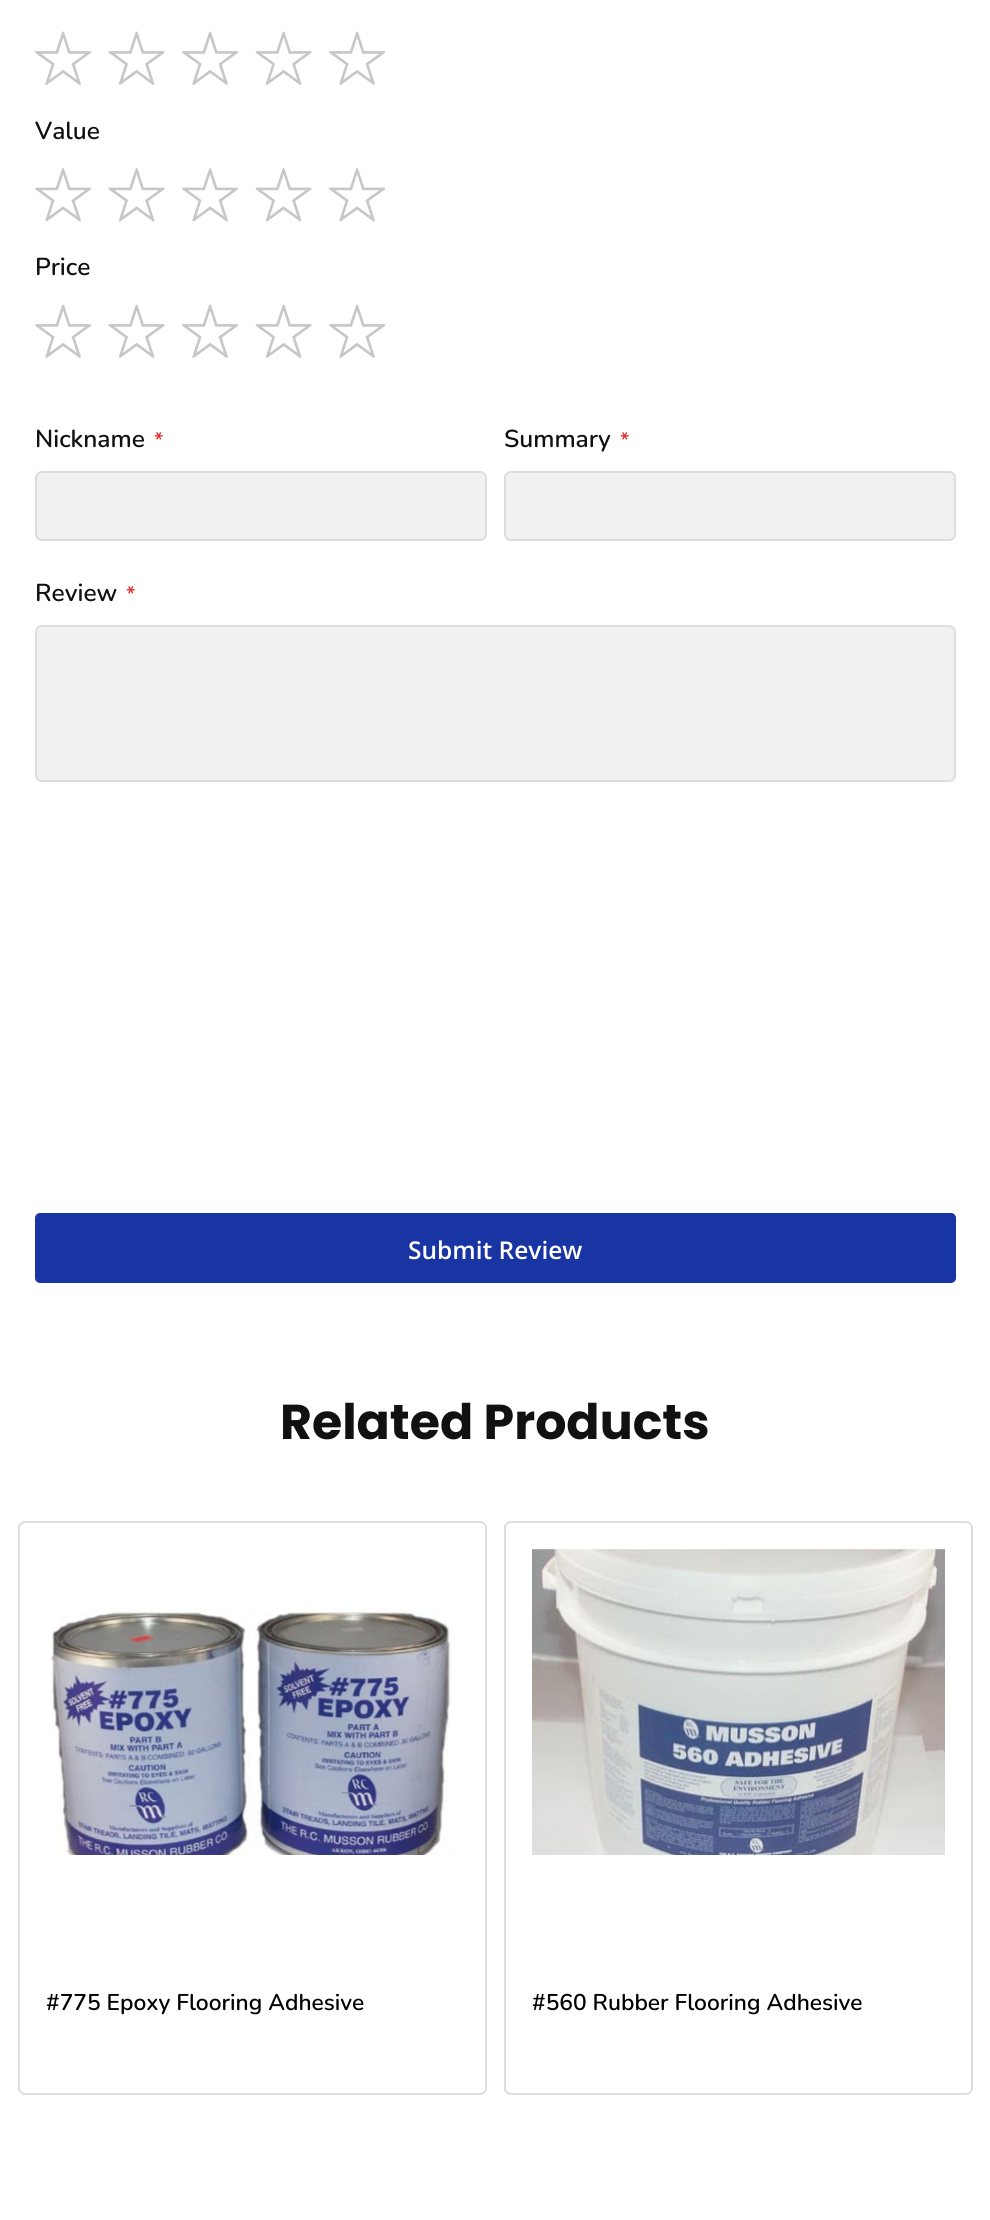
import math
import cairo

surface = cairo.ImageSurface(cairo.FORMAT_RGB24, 990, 2220)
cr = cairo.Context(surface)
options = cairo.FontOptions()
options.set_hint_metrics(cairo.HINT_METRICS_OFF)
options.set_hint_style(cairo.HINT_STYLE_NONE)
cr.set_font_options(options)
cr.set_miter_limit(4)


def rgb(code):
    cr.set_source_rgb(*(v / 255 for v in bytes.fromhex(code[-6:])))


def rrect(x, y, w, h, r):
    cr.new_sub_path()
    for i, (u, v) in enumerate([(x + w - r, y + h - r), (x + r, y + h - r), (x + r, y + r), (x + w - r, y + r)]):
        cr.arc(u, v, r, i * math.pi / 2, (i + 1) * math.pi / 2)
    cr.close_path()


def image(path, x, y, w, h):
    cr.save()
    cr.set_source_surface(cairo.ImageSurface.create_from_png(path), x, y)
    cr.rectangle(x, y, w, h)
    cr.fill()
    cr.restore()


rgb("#ffffff")
cr.paint()
image("img/1.png", 35, 31, 350, 54)
image("img/2.png", 35, 168, 351, 54)
image("img/1.png", 35, 304, 350, 54)
rgb("#f1f1f1")
rrect(36, 472, 450, 68, 6)
cr.fill_preserve()
rgb("#dddddd")
cr.stroke()
rgb("#f1f1f1")
rrect(505, 472, 450, 68, 6)
cr.fill_preserve()
rgb("#dddddd")
cr.stroke()
rgb("#f1f1f1")
rrect(36, 626, 919, 155, 6)
cr.fill_preserve()
rgb("#dddddd")
cr.stroke()
rgb("#1935a3")
rrect(36, 1214, 919, 68, 4)
cr.fill_preserve()
cr.stroke()
rrect(19, 1522, 467, 572, 6)
rgb("#dddddd")
cr.stroke()
image("img/3.png", 46, 1607, 409, 248)
rrect(505, 1522, 467, 572, 6)
cr.stroke()
image("img/4.png", 532, 1549, 413, 306)
cr.select_font_face("Nunito SemiBold")
cr.set_font_size(24.5)
rgb("#111111")
for x, y, s in [
    (35, 139, "Value"),
    (35, 275, "Price"),
    (35, 447, "Nickname"),
]:
    cr.move_to(x, y)
    cr.show_text(s)
cr.set_font_size(21)
rgb("#e02b27")
cr.move_to(154, 447)
cr.show_text("*")
cr.set_font_size(24.5)
rgb("#111111")
cr.move_to(504, 447)
cr.show_text("Summary")
cr.set_font_size(21)
rgb("#e02b27")
cr.move_to(620, 447)
cr.show_text("*")
cr.set_font_size(24.5)
rgb("#111111")
cr.move_to(35, 601)
cr.show_text("Review")
cr.set_font_size(21)
rgb("#e02b27")
cr.move_to(126, 601)
cr.show_text("*")
cr.select_font_face("Open Sans SemiBold")
cr.set_font_size(24.5)
rgb("#ffffff")
cr.move_to(408, 1259)
cr.show_text("Submit Review")
cr.select_font_face("Poppins", cairo.FONT_SLANT_NORMAL, cairo.FONT_WEIGHT_BOLD)
cr.set_font_size(49)
rgb("#111111")
cr.move_to(280, 1439)
cr.show_text("Related Products")
cr.select_font_face("Nunito SemiBold")
cr.set_font_size(22.75)
rgb("#000000")
cr.move_to(46, 2010)
cr.show_text("#775 Epoxy Flooring Adhesive")
cr.move_to(532, 2010)
cr.show_text("#560 Rubber Flooring Adhesive")
surface.write_to_png("page.png")
